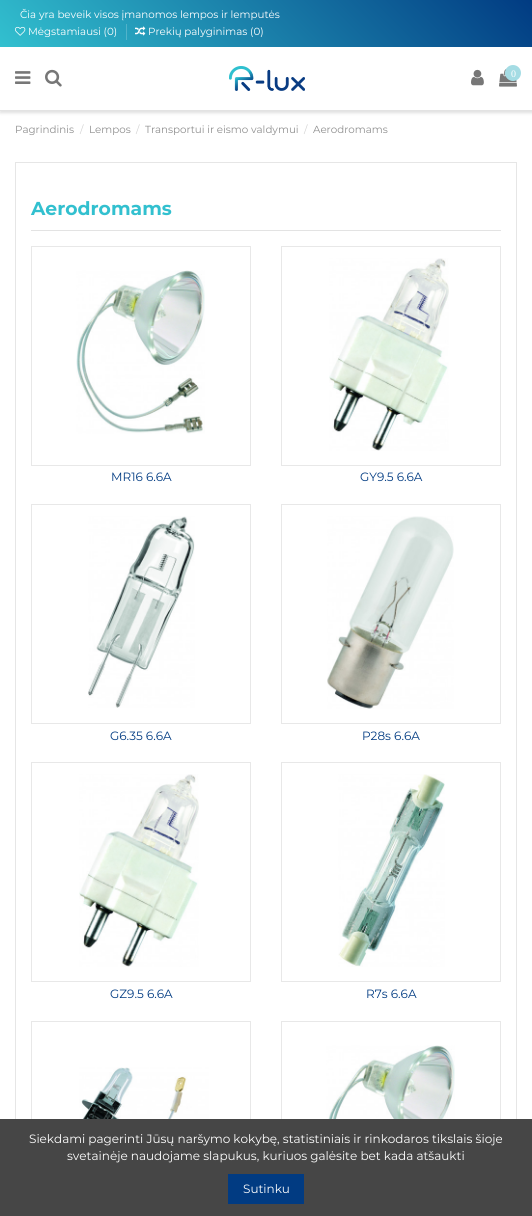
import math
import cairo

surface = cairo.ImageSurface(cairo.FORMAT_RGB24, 532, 1216)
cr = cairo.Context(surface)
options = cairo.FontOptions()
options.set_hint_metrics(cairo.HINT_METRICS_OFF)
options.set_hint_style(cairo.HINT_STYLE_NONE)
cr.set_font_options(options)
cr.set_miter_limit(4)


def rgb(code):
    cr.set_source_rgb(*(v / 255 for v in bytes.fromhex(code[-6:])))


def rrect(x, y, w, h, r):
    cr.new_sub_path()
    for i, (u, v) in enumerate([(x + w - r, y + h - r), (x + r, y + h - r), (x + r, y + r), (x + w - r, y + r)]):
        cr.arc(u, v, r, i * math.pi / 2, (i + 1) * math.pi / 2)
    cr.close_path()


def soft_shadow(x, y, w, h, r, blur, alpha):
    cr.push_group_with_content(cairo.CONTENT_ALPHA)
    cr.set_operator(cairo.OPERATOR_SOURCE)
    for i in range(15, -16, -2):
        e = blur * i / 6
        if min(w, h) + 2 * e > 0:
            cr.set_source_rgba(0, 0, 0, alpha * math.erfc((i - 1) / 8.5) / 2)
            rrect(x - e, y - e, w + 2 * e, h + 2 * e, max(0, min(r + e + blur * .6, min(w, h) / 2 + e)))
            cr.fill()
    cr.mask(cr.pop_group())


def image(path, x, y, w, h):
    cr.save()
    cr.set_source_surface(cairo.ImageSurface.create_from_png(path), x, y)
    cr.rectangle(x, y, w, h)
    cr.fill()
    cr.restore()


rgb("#ffffff")
cr.paint()
cr.save()
cr.rectangle(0, 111, 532, 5)
cr.clip()
rgb("#e0e0e0")
soft_shadow(0, -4, 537, 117, 0, 1.5, 1)
cr.restore()
gradient = cairo.LinearGradient(121, 168, 411, -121)
gradient.add_color_stop_rgba(0, 0.196, 0.753, 0.812, 1)
gradient.add_color_stop_rgba(1, 0.004, 0.231, 0.51, 1)
cr.set_source(gradient)
cr.rectangle(0, 0, 532, 47)
cr.fill()
gradient = cairo.LinearGradient(121, 168, 411, -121)
gradient.add_color_stop_rgba(0, 0.357, 0.804, 0.851, 1)
gradient.add_color_stop_rgba(1, 0.204, 0.384, 0.608, 1)
cr.set_source(gradient)
cr.rectangle(126, 24, 1, 16)
cr.fill()
image("img/1.png", 15, 26, 11, 10)
image("img/2.png", 135, 26, 11, 10)
rgb("#e3e3e3")
cr.rectangle(0, 110, 532, 1)
cr.fill()
image("img/3.png", 15, 71, 16, 13)
image("img/4.png", 45, 69, 17, 18)
image("img/5.png", 229, 66, 76, 25)
image("img/6.png", 471, 69, 13, 17)
image("img/7.png", 499, 68, 18, 19)
rgb("#a4dce4")
cr.arc(513, 73, 8, 0, 2 * math.pi)
cr.fill()
cr.rectangle(15.5, 162.5, 501, 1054)
rgb("#e6e6e6")
cr.set_line_width(1)
cr.stroke()
rgb("#e3e3e3")
cr.rectangle(31, 230, 470, 1)
cr.fill()
cr.rectangle(31.5, 246.5, 219, 219)
rgb("#e8e8e8")
cr.stroke()
image("img/8.png", 76, 270, 129, 164)
cr.rectangle(281.5, 246.5, 219, 219)
cr.stroke()
image("img/9.png", 329, 258, 120, 193)
cr.rectangle(31.5, 504.5, 219, 219)
cr.stroke()
image("img/10.png", 88, 516, 107, 192)
cr.rectangle(281.5, 504.5, 219, 219)
cr.stroke()
image("img/11.png", 327, 516, 127, 193)
cr.rectangle(31.5, 762.5, 219, 219)
cr.stroke()
image("img/9.png", 79, 774, 120, 193)
cr.rectangle(281.5, 762.5, 219, 219)
cr.stroke()
image("img/12.png", 338, 774, 107, 193)
cr.rectangle(31.5, 1021.5, 219, 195)
cr.stroke()
image("img/13.png", 79, 1067, 130, 52)
cr.rectangle(281.5, 1021.5, 219, 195)
cr.stroke()
image("img/14.png", 326, 1045, 129, 74)
rgb("#464646")
cr.rectangle(0, 1119, 532, 97)
cr.fill()
rgb("#013b82")
cr.rectangle(228, 1174, 76, 30)
cr.fill()
cr.select_font_face("Montserrat")
cr.set_font_size(10.3)
rgb("#ffffff")
for x, y, s in [
    (20, 18, "Čia yra beveik visos įmanomos lempos ir lemputės"),
    (28, 35, "Mėgstamiausi (0)"),
    (148, 35, "Prekių palyginimas (0)"),
]:
    cr.move_to(x, y)
    cr.show_text(s)
cr.select_font_face("Liberation Serif")
cr.set_font_size(10)
cr.move_to(511, 77)
cr.show_text("0")
cr.select_font_face("Montserrat")
cr.set_font_size(10.3)
rgb("#8f8f8f")
cr.move_to(15, 133)
cr.show_text("Pagrindinis")
rgb("#d2d2d2")
cr.move_to(80, 133)
cr.show_text("/")
rgb("#8f8f8f")
cr.move_to(89, 133)
cr.show_text("Lempos")
rgb("#d2d2d2")
cr.move_to(136, 133)
cr.show_text("/")
rgb("#8f8f8f")
cr.move_to(145, 133)
cr.show_text("Transportui ir eismo valdymui")
rgb("#d2d2d2")
cr.move_to(304, 133)
cr.show_text("/")
rgb("#8f8f8f")
cr.move_to(313, 133)
cr.show_text("Aerodromams")
cr.select_font_face("Montserrat", cairo.FONT_SLANT_NORMAL, cairo.FONT_WEIGHT_BOLD)
cr.set_font_size(18.75)
rgb("#32c0cf")
cr.move_to(31, 215)
cr.show_text("Aerodromams")
cr.select_font_face("Montserrat")
cr.set_font_size(12)
rgb("#013b82")
for x, y, s in [
    (111, 481, "MR16 6.6A"),
    (360, 481, "GY9.5 6.6A"),
    (110, 740, "G6.35 6.6A"),
    (362, 740, "P28s 6.6A"),
    (110, 998, "GZ9.5 6.6A"),
    (366, 998, "R7s 6.6A"),
]:
    cr.move_to(x, y)
    cr.show_text(s)
rgb("#ffffff")
for x, y, s in [
    (29, 1143, "Siekdami pagerinti Jūsų naršymo kokybę, statistiniais ir rinkodaros tikslais šioje"),
    (67, 1160, "svetainėje naudojame slapukus, kuriuos galėsite bet kada atšaukti"),
    (243, 1193, "Sutinku"),
]:
    cr.move_to(x, y)
    cr.show_text(s)
surface.write_to_png("page.png")
